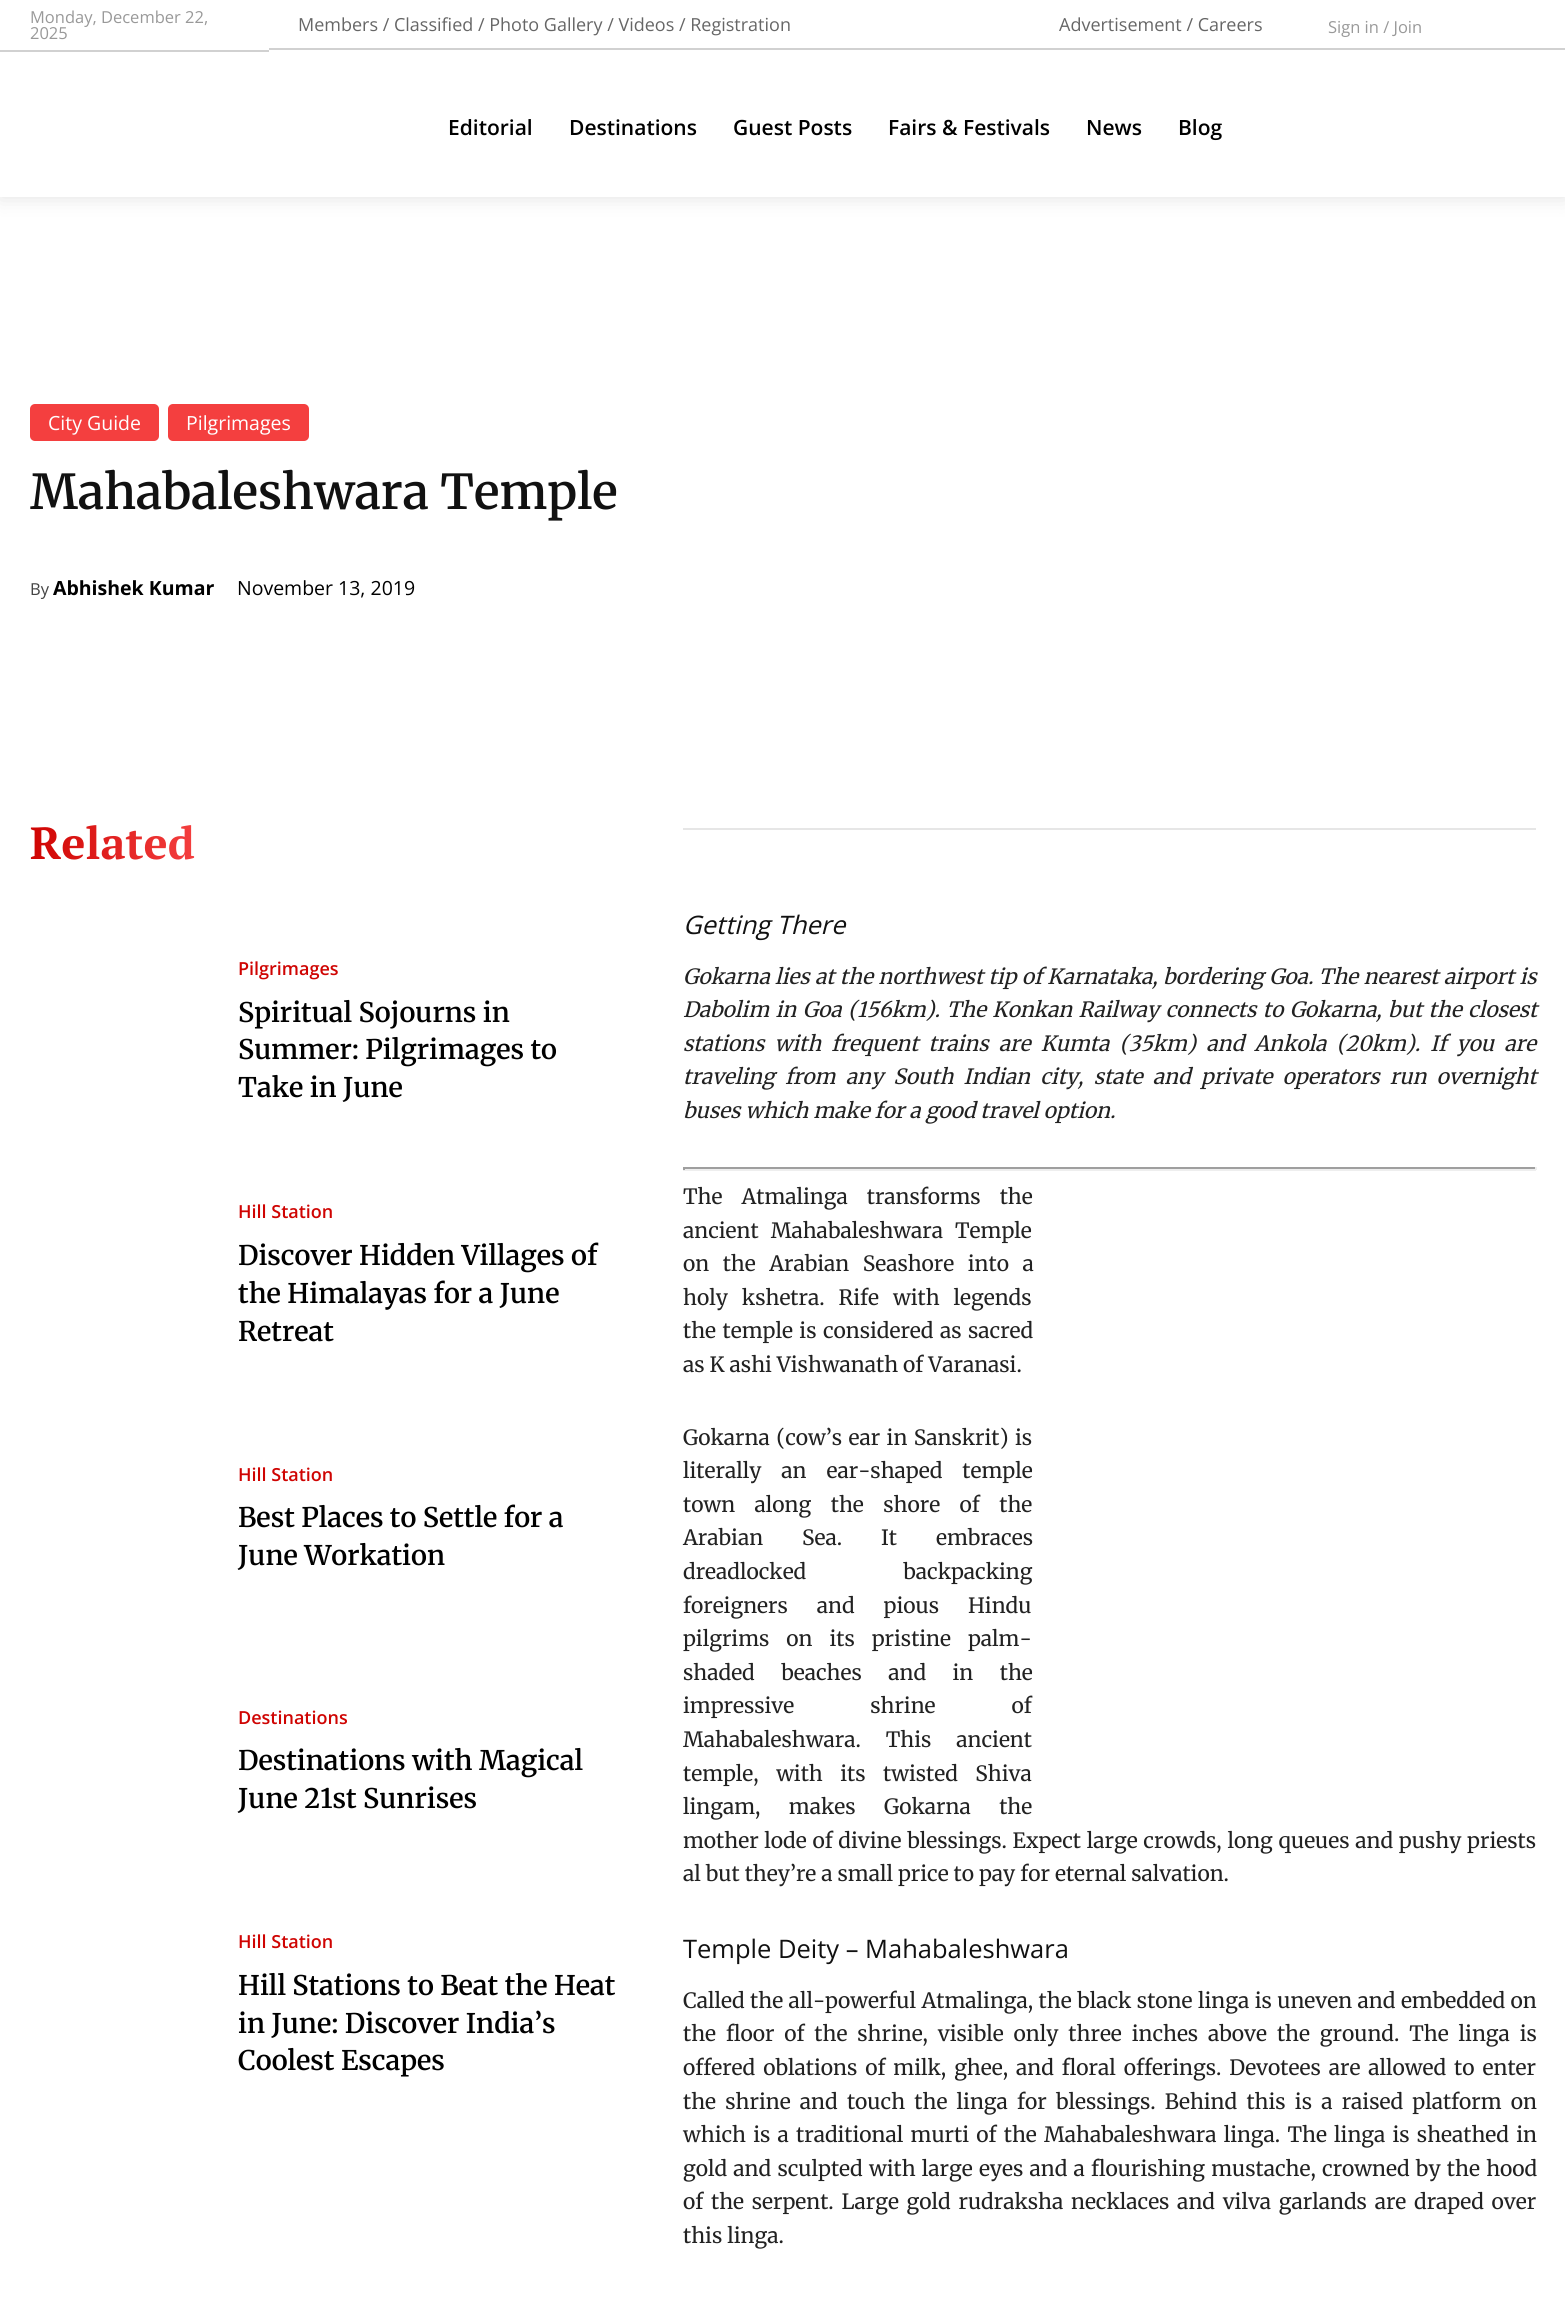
import math
import cairo

surface = cairo.ImageSurface(cairo.FORMAT_RGB24, 1565, 2299)
cr = cairo.Context(surface)
options = cairo.FontOptions()
options.set_hint_metrics(cairo.HINT_METRICS_OFF)
options.set_hint_style(cairo.HINT_STYLE_NONE)
cr.set_font_options(options)
cr.set_miter_limit(4)


def rgb(code):
    cr.set_source_rgb(*(v / 255 for v in bytes.fromhex(code[-6:])))


def tracked(x, y, s, letter, word):
    cr.move_to(x, y)
    for ch in s:
        cr.show_text(ch)
        cr.rel_move_to(letter + word * (ch == ' '), 0)


def rrect(x, y, w, h, r):
    cr.new_sub_path()
    for i, (u, v) in enumerate([(x + w - r, y + h - r), (x + r, y + h - r), (x + r, y + r), (x + w - r, y + r)]):
        cr.arc(u, v, r, i * math.pi / 2, (i + 1) * math.pi / 2)
    cr.close_path()


def soft_shadow(x, y, w, h, r, blur, alpha):
    cr.push_group_with_content(cairo.CONTENT_ALPHA)
    cr.set_operator(cairo.OPERATOR_SOURCE)
    for i in range(15, -16, -2):
        e = blur * i / 6
        if min(w, h) + 2 * e > 0:
            cr.set_source_rgba(0, 0, 0, alpha * math.erfc((i - 1) / 8.5) / 2)
            rrect(x - e, y - e, w + 2 * e, h + 2 * e, max(0, min(r + e + blur * .6, min(w, h) / 2 + e)))
            cr.fill()
    cr.mask(cr.pop_group())


rgb("#ffffff")
cr.paint()
rgb("#d1d1d1")
cr.rectangle(0, 50, 269, 2)
cr.fill()
cr.rectangle(269, 48, 1296, 2)
cr.fill()
cr.save()
cr.set_fill_rule(cairo.FILL_RULE_EVEN_ODD)
cr.new_path()
cr.move_to(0, 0)
cr.line_to(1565, 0)
cr.line_to(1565, 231)
cr.line_to(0, 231)
cr.close_path()
cr.move_to(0, 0)
cr.line_to(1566, 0)
cr.line_to(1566, 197)
cr.line_to(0, 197)
cr.close_path()
cr.clip()
rgb("#000000")
soft_shadow(0, 0, 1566, 197, 0, 11, 0.12)
cr.restore()
rgb("#f43f3f")
rrect(30, 404, 129, 37, 5)
cr.fill()
rrect(168, 404, 141, 37, 5)
cr.fill()
for x, y, w, h, color in [
    (683, 828, 853, 2, "#e6e6e6"),
    (683, 1167, 853, 2, "#9f9f9f"),
    (1535, 1167, 2, 3, "#eeeeee"),
    (683, 1169, 853, 2, "#eeeeee"),
    (683, 1167, 2, 3, "#9f9f9f"),
]:
    rgb(color)
    cr.rectangle(x, y, w, h)
    cr.fill()
cr.select_font_face("Open Sans")
cr.set_font_size(16.5)
rgb("#999999")
cr.move_to(30, 23)
cr.show_text("Monday, December 22,")
cr.move_to(30, 39)
cr.show_text("2025")
cr.set_font_size(18)
rgb("#666666")
cr.move_to(298, 31)
cr.show_text("Members / Classified / Photo Gallery / Videos / Registration")
cr.move_to(1059, 31)
cr.show_text("Advertisement / Careers")
cr.set_font_size(16.5)
rgb("#999999")
cr.move_to(1328, 33)
cr.show_text("Sign in / Join")
cr.select_font_face("Open Sans SemiBold")
cr.set_font_size(21)
rgb("#000000")
for x, y, s in [
    (448, 135, "Editorial"),
    (569, 135, "Destinations"),
    (733, 135, "Guest Posts"),
    (888, 135, "Fairs & Festivals"),
    (1086, 135, "News"),
    (1178, 135, "Blog"),
]:
    cr.move_to(x, y)
    cr.show_text(s)
cr.select_font_face("Open Sans")
cr.set_font_size(19.5)
rgb("#ffffff")
cr.move_to(48, 430)
cr.show_text("City Guide")
cr.move_to(186, 430)
cr.show_text("Pilgrimages")
cr.select_font_face("Merriweather SemiBold")
cr.set_font_size(48)
rgb("#111111")
cr.move_to(30, 509)
cr.show_text("Mahabaleshwara Temple")
cr.select_font_face("Open Sans")
cr.set_font_size(16.5)
rgb("#444444")
cr.move_to(30, 595)
cr.show_text("By")
cr.select_font_face("Open Sans", cairo.FONT_SLANT_NORMAL, cairo.FONT_WEIGHT_BOLD)
cr.set_font_size(19.5)
rgb("#000000")
cr.move_to(53, 595)
cr.show_text("Abhishek Kumar")
cr.select_font_face("Open Sans")
cr.move_to(237, 595)
cr.show_text("November 13, 2019")
cr.select_font_face("PT Serif", cairo.FONT_SLANT_NORMAL, cairo.FONT_WEIGHT_BOLD)
cr.set_font_size(45)
gradient = cairo.LinearGradient(195, 843, 30, 843)
gradient.add_color_stop_rgba(0, 0.957, 0.247, 0.247, 1)
gradient.add_color_stop_rgba(1, 0.812, 0.016, 0.008, 1)
cr.set_source(gradient)
cr.move_to(30, 859)
cr.show_text("Related")
cr.select_font_face("Open Sans SemiBold")
cr.set_font_size(18)
rgb("#cf0402")
cr.move_to(238, 975)
cr.show_text("Pilgrimages")
cr.select_font_face("Merriweather SemiBold")
cr.set_font_size(27)
rgb("#000000")
for x, y, s in [
    (238, 1022, "Spiritual Sojourns in"),
    (238, 1059, "Summer: Pilgrimages to"),
    (238, 1097, "Take in June"),
]:
    cr.move_to(x, y)
    cr.show_text(s)
cr.select_font_face("Open Sans SemiBold")
cr.set_font_size(18)
rgb("#cf0402")
cr.move_to(238, 1218)
cr.show_text("Hill Station")
cr.select_font_face("Merriweather SemiBold")
cr.set_font_size(27)
rgb("#000000")
for x, y, s in [
    (238, 1265, "Discover Hidden Villages of"),
    (238, 1303, "the Himalayas for a June"),
    (238, 1341, "Retreat"),
]:
    cr.move_to(x, y)
    cr.show_text(s)
cr.select_font_face("Open Sans SemiBold")
cr.set_font_size(18)
rgb("#cf0402")
cr.move_to(238, 1481)
cr.show_text("Hill Station")
cr.select_font_face("Merriweather SemiBold")
cr.set_font_size(27)
rgb("#000000")
cr.move_to(238, 1527)
cr.show_text("Best Places to Settle for a")
cr.move_to(238, 1565)
cr.show_text("June Workation")
cr.select_font_face("Open Sans SemiBold")
cr.set_font_size(18)
rgb("#cf0402")
cr.move_to(238, 1724)
cr.show_text("Destinations")
cr.select_font_face("Merriweather SemiBold")
cr.set_font_size(27)
rgb("#000000")
cr.move_to(238, 1770)
cr.show_text("Destinations with Magical")
cr.move_to(238, 1808)
cr.show_text("June 21st Sunrises")
cr.select_font_face("Open Sans SemiBold")
cr.set_font_size(18)
rgb("#cf0402")
cr.move_to(238, 1948)
cr.show_text("Hill Station")
cr.select_font_face("Merriweather SemiBold")
cr.set_font_size(27)
rgb("#000000")
for x, y, s in [
    (238, 1995, "Hill Stations to Beat the Heat"),
    (238, 2033, "in June: Discover India’s"),
    (238, 2070, "Coolest Escapes"),
]:
    cr.move_to(x, y)
    cr.show_text(s)
cr.select_font_face("Open Sans", cairo.FONT_SLANT_ITALIC)
cr.set_font_size(25.5)
rgb("#111111")
cr.move_to(683, 934)
cr.show_text("Getting There")
cr.select_font_face("Merriweather", cairo.FONT_SLANT_ITALIC)
cr.set_font_size(21)
rgb("#222222")
tracked(683, 984, "Gokarna lies at the northwest tip of Karnataka, bordering Goa. The nearest airport is", 0, 0.4)
tracked(683, 1017, "Dabolim in Goa (156km). The Konkan Railway connects to Gokarna, but the closest", 0, 1.5)
tracked(683, 1051, "stations with frequent trains are Kumta (35km) and Ankola (20km). If you are", 0, 5.25)
tracked(683, 1084, "traveling from any South Indian city, state and private operators run overnight", 0, 5.25)
cr.move_to(683, 1118)
cr.show_text("buses which make for a good travel option.")
cr.select_font_face("Merriweather")
tracked(683, 1204, "The Atmalinga transforms the", 0, 14)
tracked(683, 1238, "ancient Mahabaleshwara Temple", 0, 7)
tracked(683, 1271, "on the Arabian Seashore into a", 0, 8.5)
tracked(683, 1305, "holy kshetra. Rife with legends", 0, 9)
tracked(683, 1338, "the temple is considered as sacred", 0, 1.5)
cr.move_to(683, 1372)
cr.show_text("as K ashi Vishwanath of Varanasi.")
tracked(683, 1445, "Gokarna (cow’s ear in Sanskrit) is", 0, 1.5)
tracked(683, 1478, "literally an ear-shaped temple", 0, 15)
tracked(683, 1512, "town along the shore of the", 0, 14.5)
tracked(683, 1545, "Arabian Sea. It embraces", 0, 34)
tracked(683, 1579, "dreadlocked backpacking", 0, 92)
tracked(683, 1613, "foreigners and pious Hindu", 0, 24)
tracked(683, 1646, "pilgrims on its pristine palm-", 0, 12)
tracked(683, 1680, "shaded beaches and in the", 0, 21.5)
tracked(683, 1713, "impressive shrine of", 0, 71)
tracked(683, 1747, "Mahabaleshwara. This ancient", 0, 20)
tracked(683, 1781, "temple, with its twisted Shiva", 0, 12.5)
tracked(683, 1814, "lingam, makes Gokarna the", 0, 23.5)
tracked(683, 1848, "mother lode of divine blessings. Expect large crowds, long queues and pushy priests", 0, 0.75)
cr.move_to(683, 1881)
cr.show_text("al but they’re a small price to pay for eternal salvation.")
cr.select_font_face("Open Sans")
cr.set_font_size(25.5)
rgb("#111111")
cr.move_to(683, 1958)
cr.show_text("Temple Deity – Mahabaleshwara")
cr.select_font_face("Merriweather")
cr.set_font_size(21)
rgb("#222222")
tracked(683, 2008, "Called the all-powerful Atmalinga, the black stone linga is uneven and embedded on", 0, 0.5)
tracked(683, 2041, "the floor of the shrine, visible only three inches above the ground. The linga is", 0, 4.9)
tracked(683, 2075, "offered oblations of milk, ghee, and floral offerings. Devotees are allowed to enter", 0, 3)
tracked(683, 2109, "the shrine and touch the linga for blessings. Behind this is a raised platform on", 0, 4.25)
tracked(683, 2142, "which is a traditional murti of the Mahabaleshwara linga. The linga is sheathed in", 0, 2.25)
tracked(683, 2176, "gold and sculpted with large eyes and a flourishing mustache, crowned by the hood", 0, 1.25)
tracked(683, 2209, "of the serpent. Large gold rudraksha necklaces and vilva garlands are draped over", 0, 2.75)
cr.move_to(683, 2243)
cr.show_text("this linga.")
surface.write_to_png("page.png")
